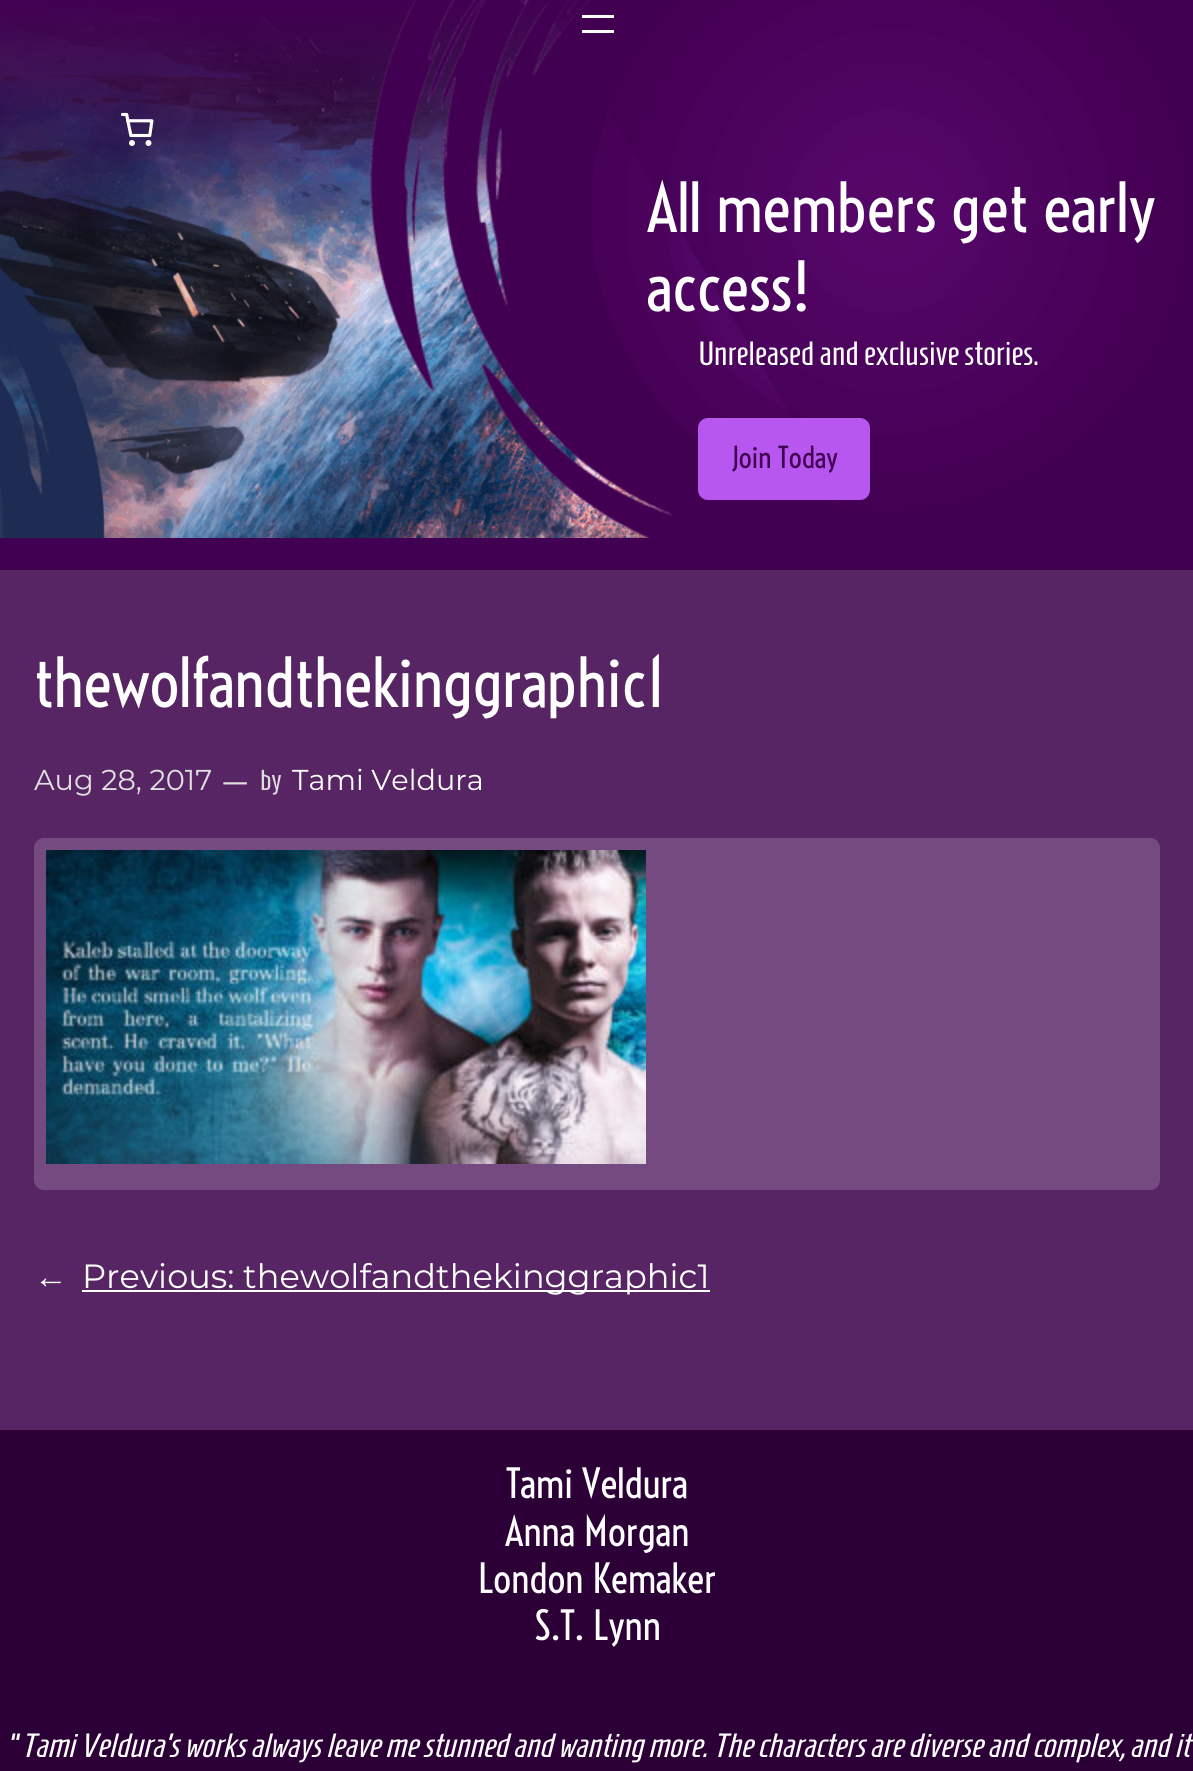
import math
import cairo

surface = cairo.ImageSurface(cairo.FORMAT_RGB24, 1193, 1771)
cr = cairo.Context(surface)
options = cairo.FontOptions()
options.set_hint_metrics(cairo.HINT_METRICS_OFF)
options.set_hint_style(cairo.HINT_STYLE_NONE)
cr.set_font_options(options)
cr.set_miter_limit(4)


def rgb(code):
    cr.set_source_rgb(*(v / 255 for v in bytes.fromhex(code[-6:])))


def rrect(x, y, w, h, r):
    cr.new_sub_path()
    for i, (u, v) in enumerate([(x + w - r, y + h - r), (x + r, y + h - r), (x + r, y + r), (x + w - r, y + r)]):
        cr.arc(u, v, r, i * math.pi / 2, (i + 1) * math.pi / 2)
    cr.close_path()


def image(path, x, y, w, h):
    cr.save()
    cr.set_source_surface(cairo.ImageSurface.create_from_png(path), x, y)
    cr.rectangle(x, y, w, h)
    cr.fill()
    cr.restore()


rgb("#420052")
cr.paint()
image("img/1.png", 0, 0, 673, 538)
image("img/2.png", 369, 0, 824, 538)
gradient = cairo.LinearGradient(40, 604, 1154, -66)
gradient.add_color_stop_rgba(0.57, 0.259, 0, 0.322, 0)
gradient.add_color_stop_rgba(0.57, 0.259, 0, 0.322, 0.5)
cr.set_source(gradient)
cr.rectangle(545, 0, 642, 509)
cr.fill()
rgb("#ffffff")
cr.rectangle(582, 15, 32, 3)
cr.fill()
cr.rectangle(582, 30, 32, 3)
cr.fill()
image("img/3.png", 120, 112, 34, 34)
rgb("#b856f0")
rrect(698, 418, 172, 82, 10)
cr.fill()
rgb("#572563")
cr.rectangle(0, 570, 1193, 860)
cr.fill()
rgb("#754a80")
rrect(40, 844, 1114, 340, 4)
cr.fill_preserve()
cr.set_line_width(12)
cr.stroke()
image("img/4.png", 46, 850, 600, 314)
rgb("#ffffff")
cr.rectangle(82, 1290, 628, 2)
cr.fill()
rgb("#2c0037")
cr.rectangle(0, 1430, 1193, 341)
cr.fill()
cr.select_font_face("Voltaire")
cr.set_font_size(65.25)
rgb("#ffffff")
cr.move_to(647, 232)
cr.show_text("All members get early")
cr.move_to(647, 311)
cr.show_text("access!")
cr.select_font_face("Homenaje")
cr.set_font_size(33.6)
cr.move_to(699, 365)
cr.show_text("Unreleased and exclusive stories.")
cr.select_font_face("Voltaire")
cr.set_font_size(28.75)
rgb("#420052")
cr.move_to(731, 468)
cr.show_text("Join Today")
cr.set_font_size(65.25)
rgb("#ffffff")
cr.move_to(34, 707)
cr.show_text("thewolfandthekinggraphic1")
cr.select_font_face("Montserrat")
cr.set_font_size(28.75)
rgb("#e0e0e0")
cr.move_to(34, 790)
cr.show_text("Aug 28, 2017")
cr.select_font_face("Homenaje")
cr.set_font_size(33.6)
cr.move_to(222, 792)
cr.show_text("—")
cr.set_font_size(28.75)
cr.move_to(260, 790)
cr.show_text("by")
cr.select_font_face("Montserrat")
rgb("#ffffff")
cr.move_to(292, 790)
cr.show_text("Tami Veldura")
cr.select_font_face("Liberation Serif")
cr.set_font_size(33.6)
cr.move_to(34, 1288)
cr.show_text("←")
cr.select_font_face("Montserrat")
cr.move_to(82, 1288)
cr.show_text("Previous: thewolfandthekinggraphic1")
cr.select_font_face("Voltaire")
cr.set_font_size(39.5)
for x, y, s in [
    (506, 1498, "Tami Veldura"),
    (505, 1546, "Anna Morgan"),
    (478, 1593, "London Kemaker"),
    (534, 1640, "S.T. Lynn"),
]:
    cr.move_to(x, y)
    cr.show_text(s)
cr.select_font_face("Homenaje", cairo.FONT_SLANT_ITALIC)
cr.set_font_size(33.6)
cr.move_to(6, 1757)
cr.show_text("“ Tami Veldura’s works always leave me stunned and wanting more. The characters are diverse and complex, and it")
surface.write_to_png("page.png")
